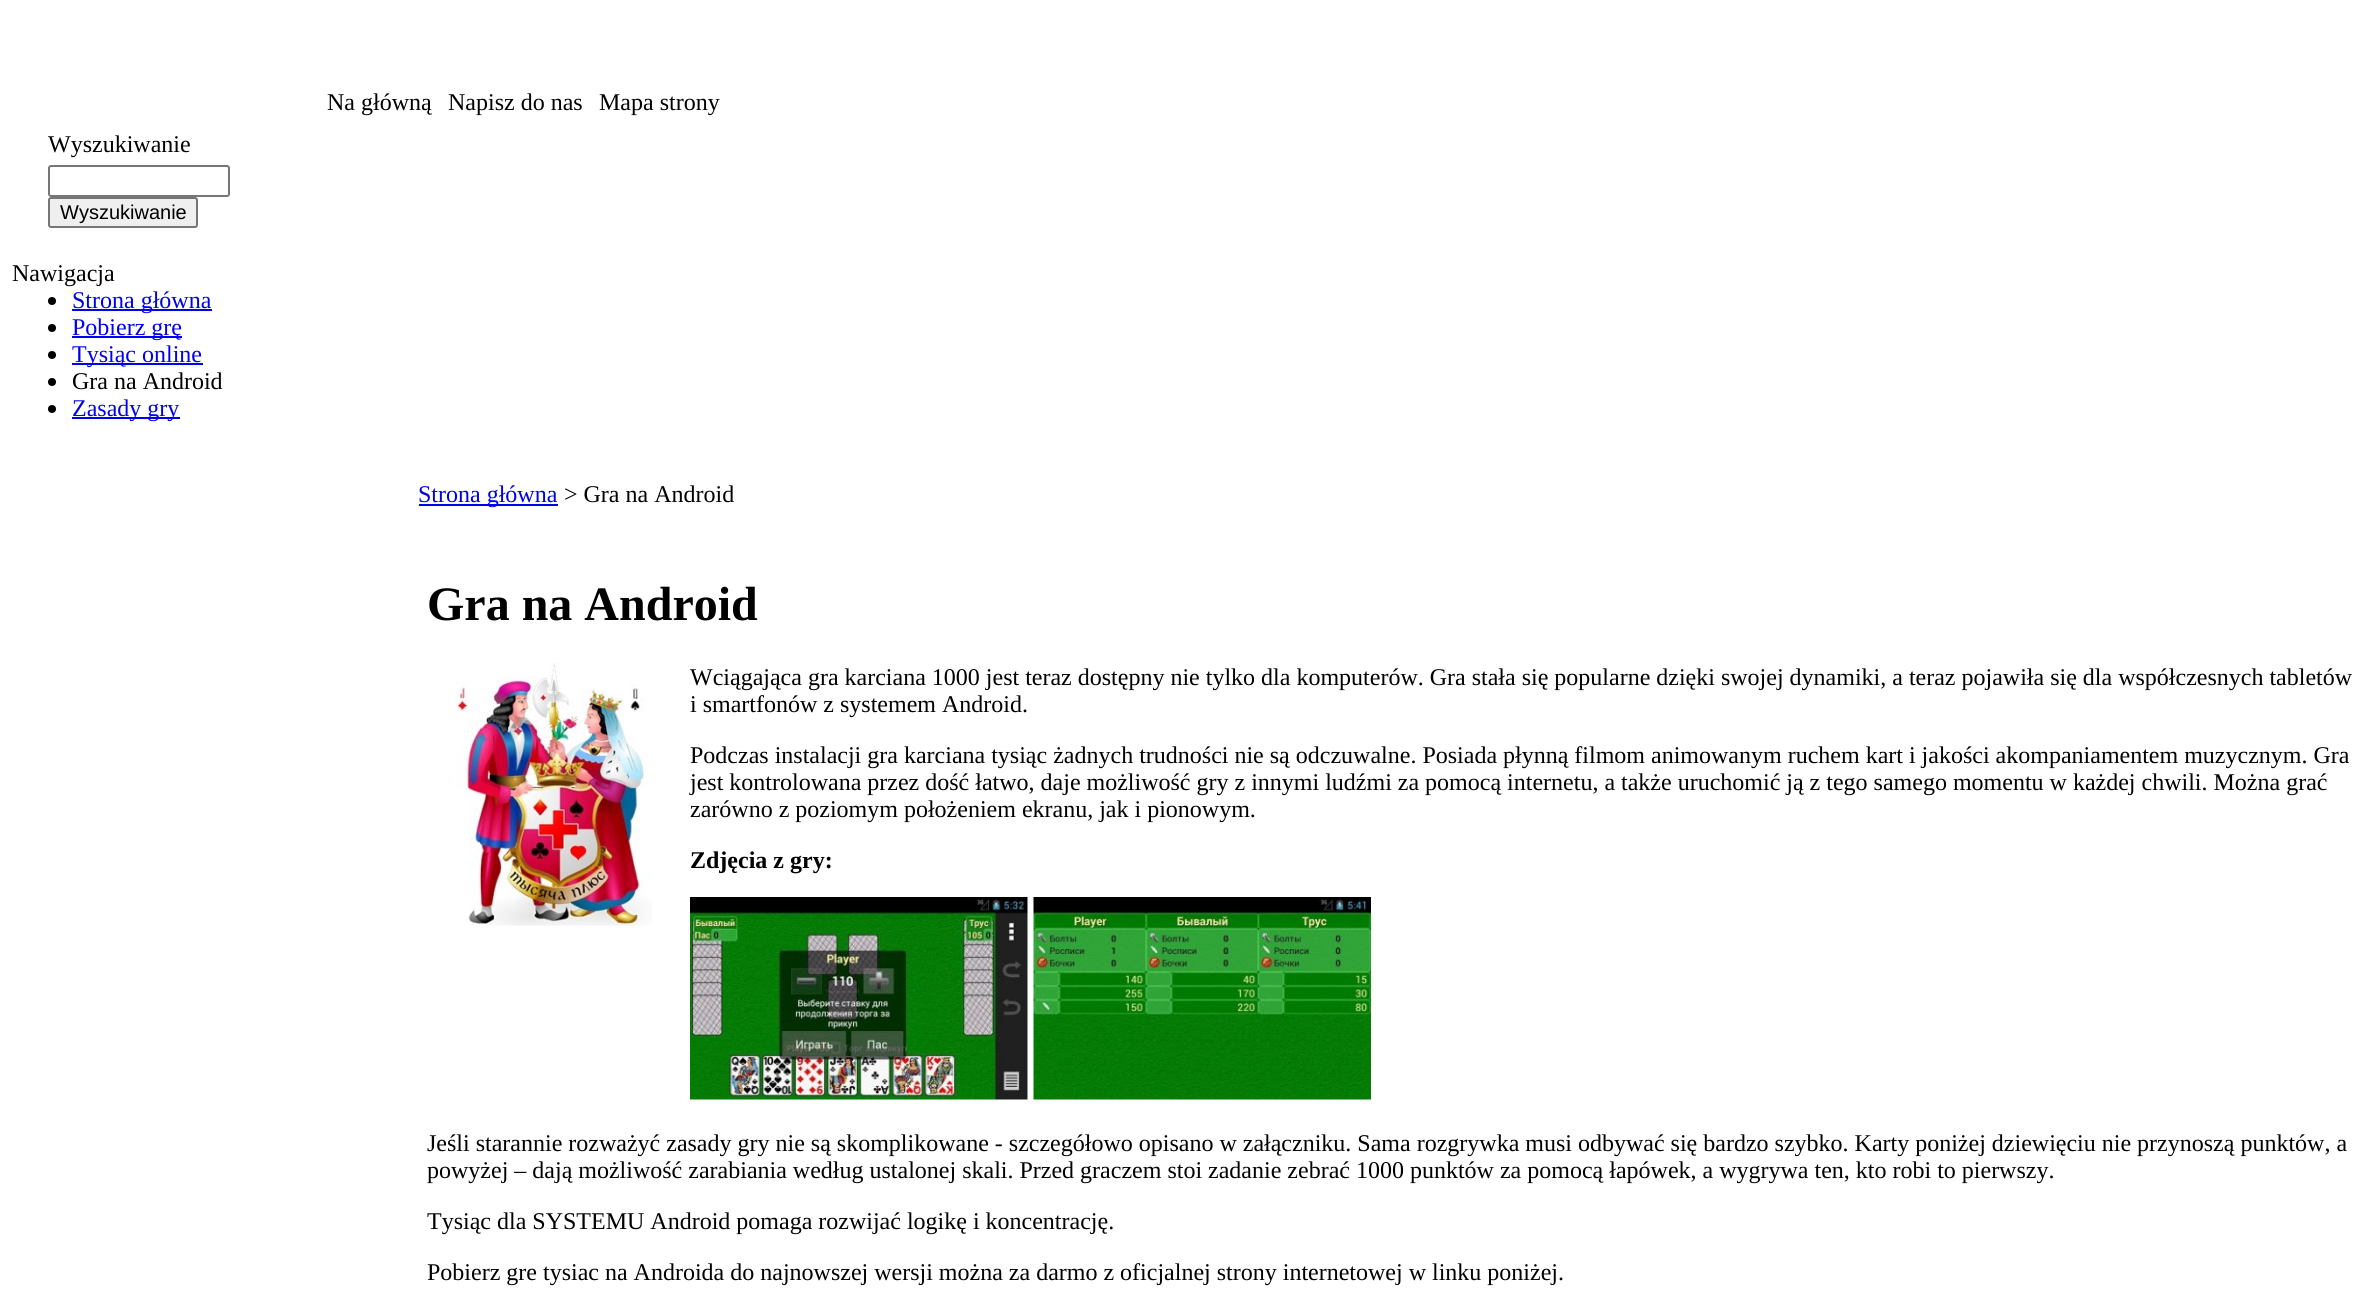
import math
import cairo

surface = cairo.ImageSurface(cairo.FORMAT_RGB24, 2374, 1305)
cr = cairo.Context(surface)
options = cairo.FontOptions()
options.set_hint_metrics(cairo.HINT_METRICS_OFF)
options.set_hint_style(cairo.HINT_STYLE_NONE)
cr.set_font_options(options)
cr.set_miter_limit(4)


def rgb(code):
    cr.set_source_rgb(*(v / 255 for v in bytes.fromhex(code[-6:])))


def rrect(x, y, w, h, r):
    cr.new_sub_path()
    for i, (u, v) in enumerate([(x + w - r, y + h - r), (x + r, y + h - r), (x + r, y + r), (x + w - r, y + r)]):
        cr.arc(u, v, r, i * math.pi / 2, (i + 1) * math.pi / 2)
    cr.close_path()


def image(path, x, y, w, h):
    cr.save()
    cr.set_source_surface(cairo.ImageSurface.create_from_png(path), x, y)
    cr.rectangle(x, y, w, h)
    cr.fill()
    cr.restore()


rgb("#ffffff")
cr.paint()
rrect(49, 166, 180, 30, 2)
rgb("#767676")
cr.stroke()
rgb("#efefef")
rrect(49, 198, 148, 29, 2)
cr.fill_preserve()
rgb("#767676")
cr.stroke()
rgb("#000000")
cr.arc(52, 301, 4, 0, 2 * math.pi)
cr.fill()
rgb("#0000ee")
cr.rectangle(72, 309, 140, 2)
cr.fill()
rgb("#000000")
cr.arc(52, 328, 4, 0, 2 * math.pi)
cr.fill()
rgb("#0000ee")
cr.rectangle(72, 336, 110, 2)
cr.fill()
rgb("#000000")
cr.arc(52, 355, 4, 0, 2 * math.pi)
cr.fill()
rgb("#0000ee")
cr.rectangle(72, 363, 131, 2)
cr.fill()
rgb("#000000")
cr.arc(52, 382, 4, 0, 2 * math.pi)
cr.fill()
cr.arc(52, 409, 4, 0, 2 * math.pi)
cr.fill()
rgb("#0000ee")
cr.rectangle(72, 417, 108, 2)
cr.fill()
cr.rectangle(419, 504, 139, 2)
cr.fill()
image("img/1.png", 455, 663, 197, 263)
image("img/2.png", 690, 897, 338, 203)
image("img/3.png", 1033, 897, 338, 203)
cr.select_font_face("Liberation Serif")
cr.set_font_size(24)
rgb("#000000")
for x, y, s in [
    (327, 110, "Na główną"),
    (448, 110, "Napisz do nas"),
    (599, 110, "Mapa strony"),
    (48, 152, "Wyszukiwanie"),
]:
    cr.move_to(x, y)
    cr.show_text(s)
cr.select_font_face("Liberation Sans")
cr.set_font_size(20)
cr.move_to(60, 219)
cr.show_text("Wyszukiwanie")
cr.select_font_face("Liberation Serif")
cr.set_font_size(24)
cr.move_to(12, 281)
cr.show_text("Nawigacja")
rgb("#0000ee")
for x, y, s in [
    (72, 308, "Strona główna"),
    (72, 335, "Pobierz grę"),
    (72, 362, "Tysiąc online"),
]:
    cr.move_to(x, y)
    cr.show_text(s)
rgb("#000000")
cr.move_to(72, 389)
cr.show_text("Gra na Android")
rgb("#0000ee")
cr.move_to(72, 416)
cr.show_text("Zasady gry")
cr.move_to(418, 502)
cr.show_text("Strona główna")
rgb("#000000")
cr.move_to(564, 502)
cr.show_text("> Gra na Android")
cr.select_font_face("Liberation Serif", cairo.FONT_SLANT_NORMAL, cairo.FONT_WEIGHT_BOLD)
cr.set_font_size(48)
cr.move_to(427, 620)
cr.show_text("Gra na Android")
cr.select_font_face("Liberation Serif")
cr.set_font_size(24)
for x, y, s in [
    (690, 685, "Wciągająca gra karciana 1000 jest teraz dostępny nie tylko dla komputerów. Gra stała się popularne dzięki swojej dynamiki, a teraz pojawiła się dla współczesnych tabletów"),
    (690, 712, "i smartfonów z systemem Android."),
    (690, 763, "Podczas instalacji gra karciana tysiąc żadnych trudności nie są odczuwalne. Posiada płynną filmom animowanym ruchem kart i jakości akompaniamentem muzycznym. Gra"),
    (690, 790, "jest kontrolowana przez dość łatwo, daje możliwość gry z innymi ludźmi za pomocą internetu, a także uruchomić ją z tego samego momentu w każdej chwili. Można grać"),
    (690, 817, "zarówno z poziomym położeniem ekranu, jak i pionowym."),
]:
    cr.move_to(x, y)
    cr.show_text(s)
cr.select_font_face("Liberation Serif", cairo.FONT_SLANT_NORMAL, cairo.FONT_WEIGHT_BOLD)
cr.move_to(690, 868)
cr.show_text("Zdjęcia z gry:")
cr.select_font_face("Liberation Serif")
for x, y, s in [
    (427, 1151, "Jeśli starannie rozważyć zasady gry nie są skomplikowane - szczegółowo opisano w załączniku. Sama rozgrywka musi odbywać się bardzo szybko. Karty poniżej dziewięciu nie przynoszą punktów, a"),
    (427, 1178, "powyżej – dają możliwość zarabiania według ustalonej skali. Przed graczem stoi zadanie zebrać 1000 punktów za pomocą łapówek, a wygrywa ten, kto robi to pierwszy."),
    (427, 1229, "Tysiąc dla SYSTEMU Android pomaga rozwijać logikę i koncentrację."),
    (427, 1280, "Pobierz gre tysiac na Androida do najnowszej wersji można za darmo z oficjalnej strony internetowej w linku poniżej."),
]:
    cr.move_to(x, y)
    cr.show_text(s)
surface.write_to_png("page.png")
